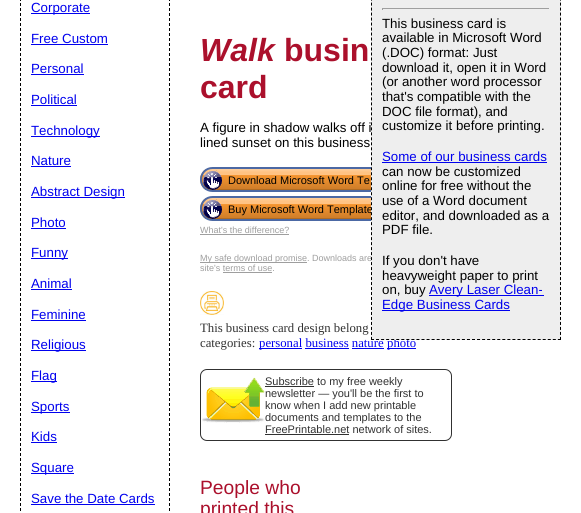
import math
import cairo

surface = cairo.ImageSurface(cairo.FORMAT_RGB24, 581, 513)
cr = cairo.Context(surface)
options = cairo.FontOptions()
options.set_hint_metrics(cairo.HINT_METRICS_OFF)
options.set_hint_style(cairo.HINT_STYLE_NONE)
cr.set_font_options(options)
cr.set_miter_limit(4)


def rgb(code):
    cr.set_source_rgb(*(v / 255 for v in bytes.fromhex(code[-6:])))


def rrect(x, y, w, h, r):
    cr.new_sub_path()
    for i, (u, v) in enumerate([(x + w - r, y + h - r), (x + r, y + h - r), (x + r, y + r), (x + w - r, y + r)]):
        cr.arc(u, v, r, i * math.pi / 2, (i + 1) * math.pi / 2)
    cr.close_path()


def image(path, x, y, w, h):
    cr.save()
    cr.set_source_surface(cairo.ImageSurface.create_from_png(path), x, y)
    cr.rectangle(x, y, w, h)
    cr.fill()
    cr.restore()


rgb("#ffffff")
cr.paint()
cr.new_path()
cr.move_to(169.5, -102)
cr.line_to(169.5, 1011)
rgb("#000000")
cr.set_line_width(1)
cr.set_dash([3, 2])
cr.stroke()
cr.new_path()
cr.move_to(20.5, -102)
cr.line_to(20.5, 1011)
cr.stroke()
for x, y, w, h, color in [
    (31, 13, 59, 1, "#0000ee"),
    (31, 44, 77, 1, "#0000ee"),
    (31, 74, 53, 1, "#0000ee"),
    (31, 105, 46, 1, "#0000ee"),
    (31, 136, 69, 1, "#0000ee"),
    (31, 166, 40, 1, "#0000ee"),
    (31, 197, 94, 1, "#0000ee"),
    (31, 228, 35, 1, "#0000ee"),
    (31, 258, 37, 1, "#0000ee"),
    (31, 289, 41, 1, "#0000ee"),
    (31, 320, 55, 1, "#0000ee"),
    (31, 350, 55, 1, "#0000ee"),
    (31, 381, 26, 1, "#0000ee"),
    (31, 412, 39, 1, "#0000ee"),
    (31, 442, 26, 1, "#0000ee"),
    (31, 473, 43, 1, "#0000ee"),
    (31, 504, 124, 1, "#0000ee"),
]:
    rgb(color)
    cr.rectangle(x, y, w, h)
    cr.fill()
cr.save()
cr.new_path()
cr.move_to(212.5, 167)
cr.line_to(446, 167)
cr.curve_to(449.5, 167, 452, 169.5, 452, 173)
cr.line_to(452, 186)
cr.curve_to(452, 189.5, 449.5, 192, 446, 192)
cr.line_to(212.5, 192)
cr.curve_to(205.5, 192, 200, 186.5, 200, 179.5)
cr.curve_to(200, 172.5, 205.5, 167, 212.5, 167)
cr.close_path()
cr.clip()
gradient = cairo.LinearGradient(326, 169, 326, 190)
gradient.add_color_stop_rgba(0, 1, 0.816, 0.62, 1)
gradient.add_color_stop_rgba(0.15, 1, 0.765, 0.518, 1)
gradient.add_color_stop_rgba(0.3, 1, 0.765, 0.518, 1)
gradient.add_color_stop_rgba(0.31, 0.957, 0.584, 0.188, 1)
gradient.add_color_stop_rgba(0.94, 0.816, 0.494, 0.161, 1)
gradient.add_color_stop_rgba(0.95, 0.749, 0.455, 0.145, 1)
gradient.add_color_stop_rgba(1, 0.643, 0.392, 0.125, 1)
cr.set_source(gradient)
cr.rectangle(200, 169, 171, 21)
cr.fill()
cr.restore()
cr.new_path()
cr.move_to(212.5, 168)
cr.line_to(446, 168)
cr.curve_to(449, 168, 451, 170, 451, 173)
cr.line_to(451, 186)
cr.curve_to(451, 189, 449, 191, 446, 191)
cr.line_to(212.5, 191)
cr.curve_to(206, 191, 201, 186, 201, 179.5)
cr.curve_to(201, 173, 206, 168, 212.5, 168)
cr.close_path()
rgb("#4c69a4")
cr.set_line_width(2)
cr.set_dash([])
cr.stroke()
image("img/1.png", 203, 170, 19, 20)
cr.save()
cr.new_path()
cr.move_to(212.5, 196)
cr.line_to(446, 196)
cr.curve_to(449.5, 196, 452, 198.5, 452, 202)
cr.line_to(452, 215)
cr.curve_to(452, 218.5, 449.5, 221, 446, 221)
cr.line_to(212.5, 221)
cr.curve_to(205.5, 221, 200, 215.5, 200, 208.5)
cr.curve_to(200, 201.5, 205.5, 196, 212.5, 196)
cr.close_path()
cr.clip()
gradient = cairo.LinearGradient(326, 198, 326, 219)
gradient.add_color_stop_rgba(0, 1, 0.816, 0.62, 1)
gradient.add_color_stop_rgba(0.15, 1, 0.765, 0.518, 1)
gradient.add_color_stop_rgba(0.3, 1, 0.765, 0.518, 1)
gradient.add_color_stop_rgba(0.31, 0.957, 0.584, 0.188, 1)
gradient.add_color_stop_rgba(0.94, 0.816, 0.494, 0.161, 1)
gradient.add_color_stop_rgba(0.95, 0.749, 0.455, 0.145, 1)
gradient.add_color_stop_rgba(1, 0.643, 0.392, 0.125, 1)
cr.set_source(gradient)
cr.rectangle(200, 198, 171, 21)
cr.fill()
cr.restore()
cr.new_path()
cr.move_to(212.5, 197)
cr.line_to(446, 197)
cr.curve_to(449, 197, 451, 199, 451, 202)
cr.line_to(451, 215)
cr.curve_to(451, 218, 449, 220, 446, 220)
cr.line_to(212.5, 220)
cr.curve_to(206, 220, 201, 215, 201, 208.5)
cr.curve_to(201, 202, 206, 197, 212.5, 197)
cr.close_path()
cr.stroke()
image("img/1.png", 203, 199, 19, 20)
for x, y, w, h, color in [
    (200, 234, 89, 1, "#9e9e9e"),
    (200, 262, 107, 1, "#9e9e9e"),
    (223, 272, 49, 1, "#9e9e9e"),
]:
    rgb(color)
    cr.rectangle(x, y, w, h)
    cr.fill()
image("img/2.png", 200, 291, 24, 24)
for x, y, w, h, color in [
    (259, 348, 43, 1, "#0000ee"),
    (387, 348, 29, 1, "#0000ee"),
    (305, 348, 44, 1, "#0000ee"),
    (352, 348, 32, 1, "#0000ee"),
]:
    rgb(color)
    cr.rectangle(x, y, w, h)
    cr.fill()
rrect(200.5, 369.5, 251, 71, 6.5)
rgb("#313131")
cr.set_line_width(1)
cr.stroke()
image("img/3.png", 202, 377, 63, 46)
cr.rectangle(265, 386, 49, 1)
cr.fill()
cr.rectangle(265, 434, 84, 1)
cr.fill()
cr.select_font_face("Liberation Sans")
cr.set_font_size(13.3)
rgb("#0000ee")
for x, y, s in [
    (31, 12, "Corporate"),
    (31, 43, "Free Custom"),
    (31, 73, "Personal"),
    (31, 104, "Political"),
    (31, 135, "Technology"),
    (31, 165, "Nature"),
    (31, 196, "Abstract Design"),
    (31, 227, "Photo"),
    (31, 257, "Funny"),
    (31, 288, "Animal"),
    (31, 319, "Feminine"),
    (31, 349, "Religious"),
    (31, 380, "Flag"),
    (31, 411, "Sports"),
    (31, 441, "Kids"),
    (31, 472, "Square"),
    (31, 503, "Save the Date Cards"),
]:
    cr.move_to(x, y)
    cr.show_text(s)
cr.select_font_face("Liberation Sans", cairo.FONT_SLANT_ITALIC, cairo.FONT_WEIGHT_BOLD)
cr.set_font_size(32)
rgb("#ab102c")
cr.move_to(200, 61)
cr.show_text("Walk")
cr.select_font_face("Liberation Sans", cairo.FONT_SLANT_NORMAL, cairo.FONT_WEIGHT_BOLD)
cr.move_to(284, 61)
cr.show_text("busin")
cr.move_to(200, 98)
cr.show_text("card")
cr.select_font_face("Liberation Sans")
cr.set_font_size(13.3)
rgb("#000000")
cr.move_to(200, 132)
cr.show_text("A figure in shadow walks off i")
cr.move_to(200, 147)
cr.show_text("lined sunset on this business")
cr.set_font_size(11)
cr.move_to(228, 184)
cr.show_text("Download Microsoft Word Te")
cr.move_to(228, 213)
cr.show_text("Buy Microsoft Word Template")
cr.set_font_size(9)
rgb("#9e9e9e")
for x, y, s in [
    (200, 233, "What's the difference?"),
    (200, 261, "My safe download promise. Downloads are"),
    (200, 271, "site's terms of use."),
]:
    cr.move_to(x, y)
    cr.show_text(s)
cr.select_font_face("Liberation Serif")
cr.set_font_size(12.75)
rgb("#313131")
cr.move_to(200, 332)
cr.show_text("This business card design belong")
cr.move_to(200, 347)
cr.show_text("categories:")
rgb("#0000ee")
cr.move_to(259, 347)
cr.show_text("personal business nature")
cr.move_to(387, 347)
cr.show_text("photo")
cr.select_font_face("Liberation Sans")
cr.set_font_size(11)
rgb("#313131")
for x, y, s in [
    (265, 385, "Subscribe to my free weekly"),
    (265, 397, "newsletter — you'll be the first to"),
    (265, 409, "know when I add new printable"),
    (265, 421, "documents and templates to the"),
    (265, 433, "FreePrintable.net network of sites."),
]:
    cr.move_to(x, y)
    cr.show_text(s)
cr.set_font_size(19.25)
rgb("#ab102c")
cr.move_to(200, 494)
cr.show_text("People who")
cr.move_to(200, 515)
cr.show_text("printed this")
rgb("#eeeeee")
cr.rectangle(371, 0, 190, 340)
cr.fill()
cr.new_path()
cr.move_to(560.5, -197)
cr.line_to(560.5, 340)
rgb("#000000")
cr.set_dash([3, 1.99])
cr.stroke()
cr.new_path()
cr.move_to(371, 339.5)
cr.line_to(561, 339.5)
cr.set_dash([3, 2.05])
cr.stroke()
cr.new_path()
cr.move_to(371.5, -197)
cr.line_to(371.5, 340)
cr.set_dash([3, 1.99])
cr.stroke()
for x, y, w, h, color in [
    (382, 8, 168, 1, "#9f9f9f"),
    (549, 8, 1, 2, "#eeeeee"),
    (382, 8, 1, 2, "#9f9f9f"),
]:
    rgb(color)
    cr.rectangle(x, y, w, h)
    cr.fill()
cr.set_font_size(13.3)
rgb("#000000")
for x, y, s in [
    (382, 28, "This business card is"),
    (382, 42, "available in Microsoft Word"),
    (382, 57, "(.DOC) format: Just"),
    (382, 72, "download it, open it in Word"),
    (382, 86, "(or another word processor"),
    (382, 101, "that's compatible with the"),
    (382, 116, "DOC file format), and"),
    (382, 130, "customize it before printing."),
]:
    cr.move_to(x, y)
    cr.show_text(s)
rgb("#0000ee")
cr.move_to(382, 161)
cr.show_text("Some of our business cards")
cr.rectangle(382, 162, 165, 1)
cr.fill()
rgb("#000000")
for x, y, s in [
    (382, 176, "can now be customized"),
    (382, 190, "online for free without the"),
    (382, 205, "use of a Word document"),
    (382, 220, "editor, and downloaded as a"),
    (382, 234, "PDF file."),
    (382, 265, "If you don't have"),
    (382, 280, "heavyweight paper to print"),
    (382, 294, "on, buy"),
]:
    cr.move_to(x, y)
    cr.show_text(s)
rgb("#0000ee")
cr.rectangle(429, 295, 115, 1)
cr.fill()
cr.move_to(429, 294)
cr.show_text("Avery Laser Clean-")
cr.rectangle(382, 310, 128, 1)
cr.fill()
cr.move_to(382, 309)
cr.show_text("Edge Business Cards")
surface.write_to_png("page.png")
